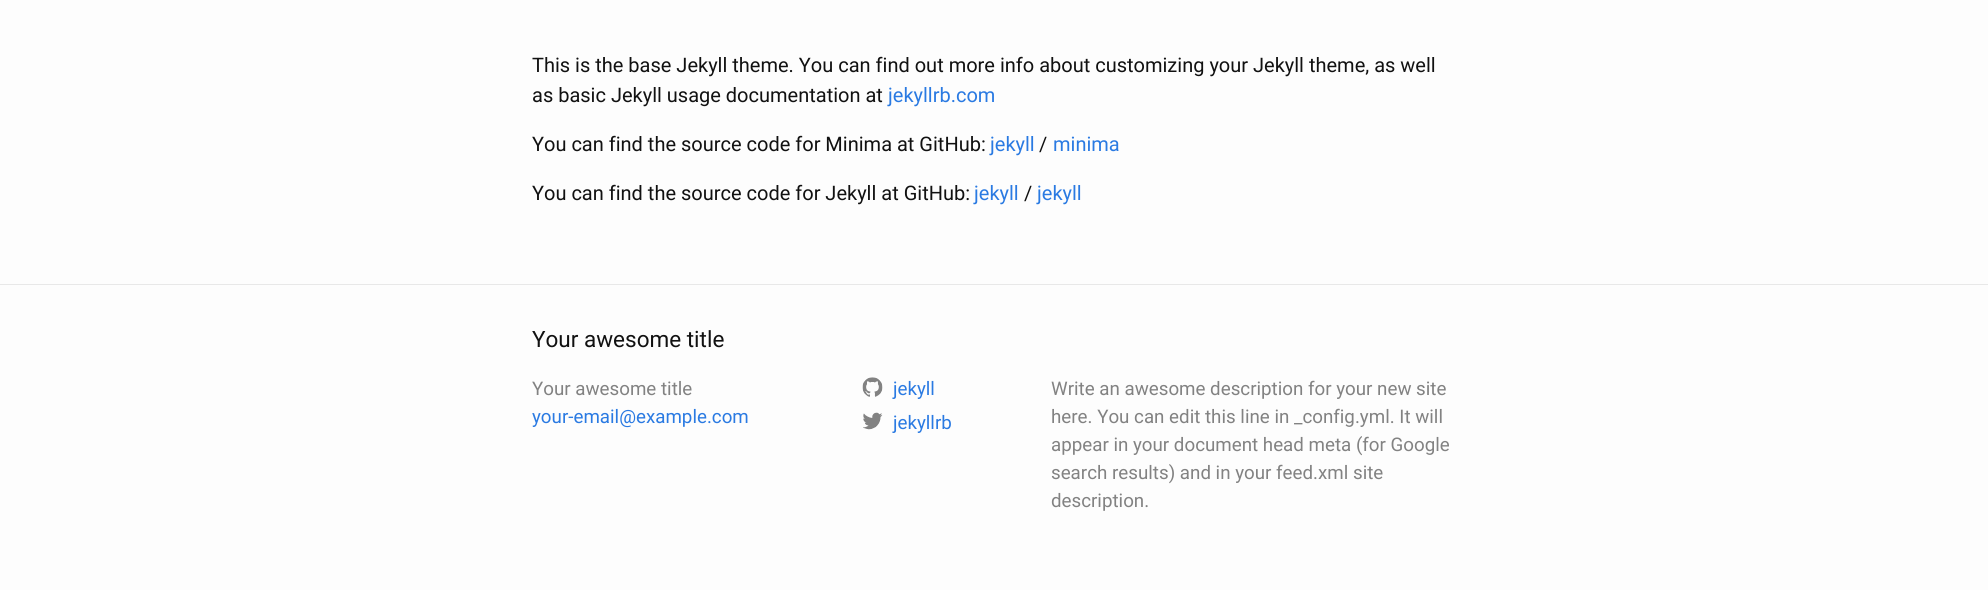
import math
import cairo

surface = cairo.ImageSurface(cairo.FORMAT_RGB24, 1988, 590)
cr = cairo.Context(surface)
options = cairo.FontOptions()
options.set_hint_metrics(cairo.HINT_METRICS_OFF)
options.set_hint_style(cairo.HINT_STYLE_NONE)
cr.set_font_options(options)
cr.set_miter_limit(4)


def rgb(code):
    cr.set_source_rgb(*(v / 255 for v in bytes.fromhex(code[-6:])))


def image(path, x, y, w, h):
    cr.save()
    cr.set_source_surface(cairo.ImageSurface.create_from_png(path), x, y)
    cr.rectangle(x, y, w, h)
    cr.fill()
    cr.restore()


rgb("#fdfdfd")
cr.paint()
rgb("#e8e8e8")
cr.rectangle(0, 284, 1988, 1)
cr.fill()
image("img/1.png", 862, 377, 21, 20)
image("img/2.png", 863, 412, 20, 18)
cr.select_font_face("Roboto")
cr.set_font_size(20)
rgb("#111111")
cr.move_to(532, 72)
cr.show_text("This is the base Jekyll theme. You can find out more info about customizing your Jekyll theme, as well")
cr.move_to(532, 102)
cr.show_text("as basic Jekyll usage documentation at")
rgb("#2a7ae2")
cr.move_to(888, 102)
cr.show_text("jekyllrb.com")
rgb("#111111")
cr.move_to(532, 151)
cr.show_text("You can find the source code for Minima at GitHub:")
rgb("#2a7ae2")
cr.move_to(990, 151)
cr.show_text("jekyll")
rgb("#111111")
cr.move_to(1039, 151)
cr.show_text("/")
rgb("#2a7ae2")
cr.move_to(1053, 151)
cr.show_text("minima")
rgb("#111111")
cr.move_to(532, 200)
cr.show_text("You can find the source code for Jekyll at GitHub:")
rgb("#2a7ae2")
cr.move_to(974, 200)
cr.show_text("jekyll")
rgb("#111111")
cr.move_to(1024, 200)
cr.show_text("/")
rgb("#2a7ae2")
cr.move_to(1037, 200)
cr.show_text("jekyll")
cr.set_font_size(22.5)
rgb("#111111")
cr.move_to(532, 347)
cr.show_text("Your awesome title")
cr.set_font_size(18.75)
rgb("#828282")
cr.move_to(532, 395)
cr.show_text("Your awesome title")
rgb("#2a7ae2")
for x, y, s in [
    (532, 423, "your-email@example.com"),
    (893, 395, "jekyll"),
    (893, 429, "jekyllrb"),
]:
    cr.move_to(x, y)
    cr.show_text(s)
rgb("#828282")
for x, y, s in [
    (1051, 395, "Write an awesome description for your new site"),
    (1051, 423, "here. You can edit this line in _config.yml. It will"),
    (1051, 451, "appear in your document head meta (for Google"),
    (1051, 479, "search results) and in your feed.xml site"),
    (1051, 507, "description."),
]:
    cr.move_to(x, y)
    cr.show_text(s)
surface.write_to_png("page.png")
